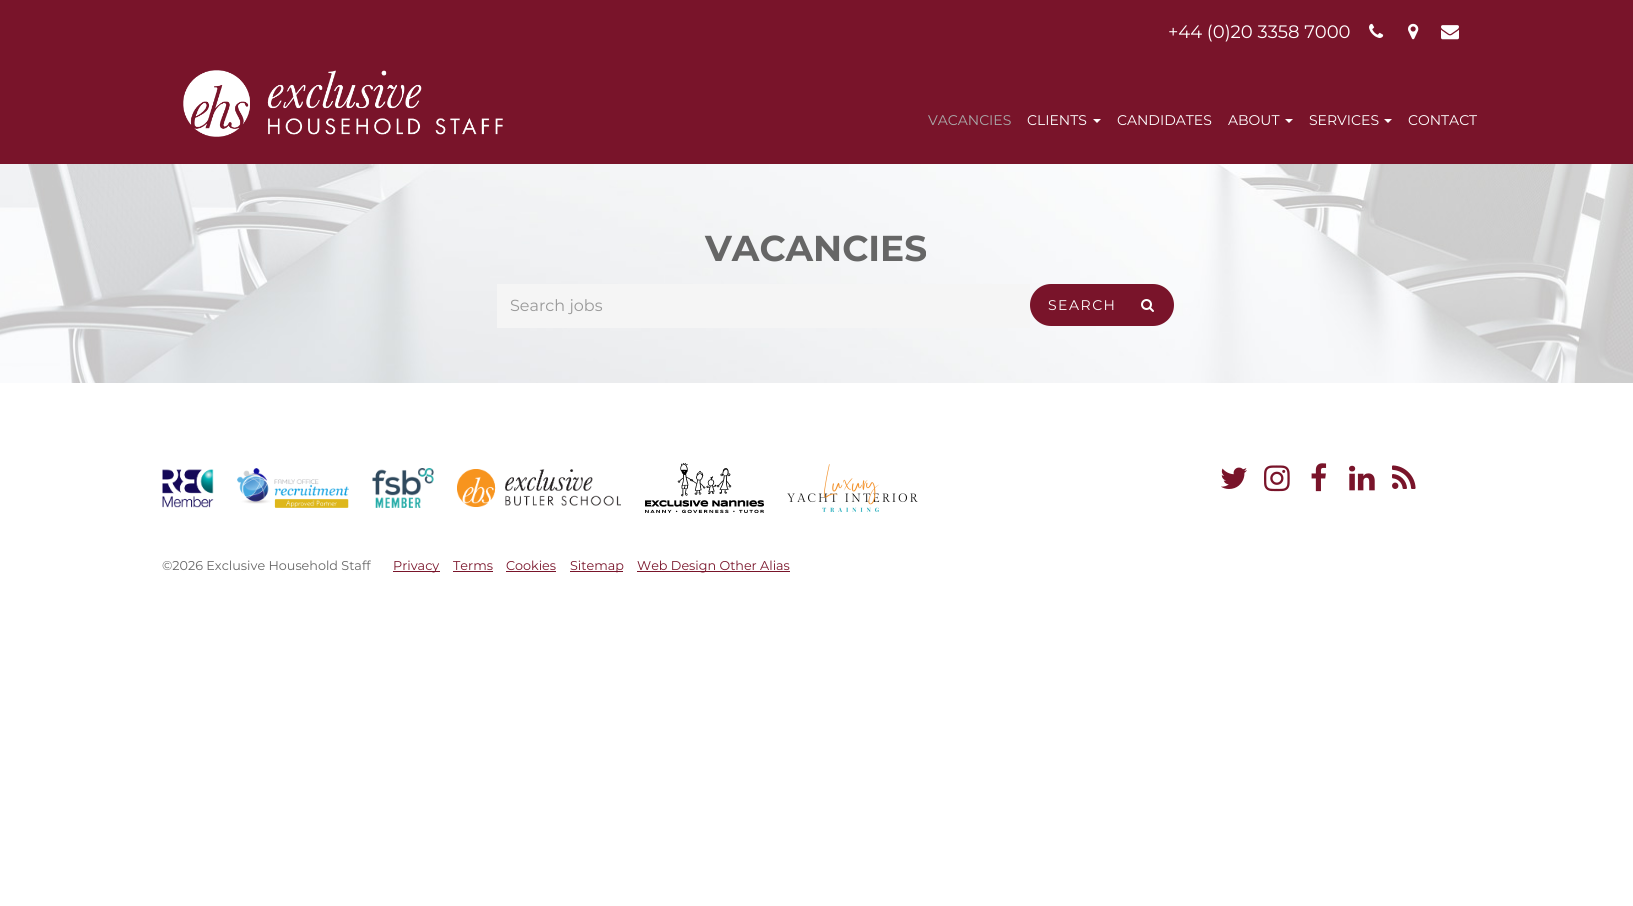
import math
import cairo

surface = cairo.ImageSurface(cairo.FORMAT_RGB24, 1633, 906)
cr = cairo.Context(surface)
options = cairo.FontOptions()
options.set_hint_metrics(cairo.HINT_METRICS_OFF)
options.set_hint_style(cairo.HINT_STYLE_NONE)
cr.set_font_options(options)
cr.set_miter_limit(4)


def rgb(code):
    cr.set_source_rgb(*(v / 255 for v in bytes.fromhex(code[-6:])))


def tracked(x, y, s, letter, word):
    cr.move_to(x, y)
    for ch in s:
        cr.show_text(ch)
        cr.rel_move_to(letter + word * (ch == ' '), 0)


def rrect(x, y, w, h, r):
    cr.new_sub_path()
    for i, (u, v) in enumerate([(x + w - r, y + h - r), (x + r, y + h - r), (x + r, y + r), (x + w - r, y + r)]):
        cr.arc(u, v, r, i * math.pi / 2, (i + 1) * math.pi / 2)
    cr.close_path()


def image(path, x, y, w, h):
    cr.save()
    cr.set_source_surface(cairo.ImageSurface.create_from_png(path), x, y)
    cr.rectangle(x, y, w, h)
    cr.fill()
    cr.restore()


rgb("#ffffff")
cr.paint()
rgb("#79142a")
cr.rectangle(0, 0, 1633, 164)
cr.fill()
image("img/1.png", 1369, 23, 15, 15)
image("img/2.png", 1408, 23, 11, 17)
image("img/3.png", 1441, 25, 18, 15)
image("img/4.png", 183, 70, 320, 67)
rgb("#ffffff")
cr.new_path()
cr.move_to(1093, 119)
cr.line_to(1101, 119)
cr.line_to(1097, 123)
cr.close_path()
cr.fill()
cr.new_path()
cr.move_to(1285, 119)
cr.line_to(1293, 119)
cr.line_to(1289, 123)
cr.close_path()
cr.fill()
cr.new_path()
cr.move_to(1384, 119)
cr.line_to(1392, 119)
cr.line_to(1388, 123)
cr.close_path()
cr.fill()
image("img/5.png", 0, 164, 1633, 219)
rgb("#f5f5f5")
cr.rectangle(497, 284, 533, 44)
cr.fill()
rgb("#79142a")
rrect(1030, 284, 144, 42, 21)
cr.fill()
image("img/6.png", 1141, 299, 13, 13)
image("img/7.png", 162, 469, 52, 39)
image("img/8.png", 237, 468, 112, 40)
image("img/9.png", 372, 468, 62, 40)
image("img/10.png", 457, 469, 164, 38)
image("img/11.png", 645, 463, 119, 50)
image("img/12.png", 787, 464, 131, 48)
image("img/13.png", 1221, 467, 26, 22)
image("img/14.png", 1264, 465, 26, 27)
image("img/15.png", 1311, 463, 16, 29)
image("img/16.png", 1349, 465, 26, 26)
image("img/17.png", 1392, 465, 24, 24)
for x, y, w, h, color in [
    (393, 571, 47, 1, "#79142a"),
    (453, 571, 40, 1, "#79142a"),
    (506, 571, 50, 1, "#79142a"),
    (570, 571, 53, 1, "#79142a"),
    (637, 571, 153, 1, "#79142a"),
]:
    rgb(color)
    cr.rectangle(x, y, w, h)
    cr.fill()
cr.select_font_face("Montserrat")
cr.set_font_size(18)
rgb("#ffffff")
cr.move_to(1168, 38)
cr.show_text("+44 (0)20 3358 7000")
cr.set_font_size(14)
rgb("#aaaaaa")
cr.move_to(928, 125)
cr.show_text("VACANCIES")
rgb("#ffffff")
for x, y, s in [
    (1027, 125, "CLIENTS"),
    (1117, 125, "CANDIDATES"),
    (1228, 125, "ABOUT"),
    (1309, 125, "SERVICES"),
    (1408, 125, "CONTACT"),
]:
    cr.move_to(x, y)
    cr.show_text(s)
cr.select_font_face("Montserrat", cairo.FONT_SLANT_NORMAL, cairo.FONT_WEIGHT_BOLD)
cr.set_font_size(36)
rgb("#666666")
cr.move_to(705, 261)
cr.show_text("VACANCIES")
cr.select_font_face("Montserrat")
cr.set_font_size(16)
rgb("#999999")
cr.move_to(510, 311)
cr.show_text("Search jobs")
cr.set_font_size(14)
rgb("#ffffff")
tracked(1048, 310, "SEARCH", 1.5, 0)
cr.set_font_size(12.75)
rgb("#666666")
cr.move_to(162, 570)
cr.show_text("©2026 Exclusive Household Staff")
rgb("#79142a")
for x, y, s in [
    (393, 570, "Privacy"),
    (453, 570, "Terms"),
    (506, 570, "Cookies"),
    (570, 570, "Sitemap"),
    (637, 570, "Web Design Other Alias"),
]:
    cr.move_to(x, y)
    cr.show_text(s)
surface.write_to_png("page.png")
